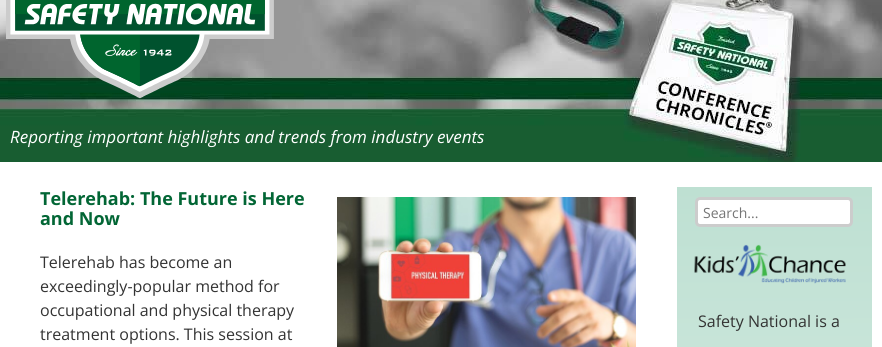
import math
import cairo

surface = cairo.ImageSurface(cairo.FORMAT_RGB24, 882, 347)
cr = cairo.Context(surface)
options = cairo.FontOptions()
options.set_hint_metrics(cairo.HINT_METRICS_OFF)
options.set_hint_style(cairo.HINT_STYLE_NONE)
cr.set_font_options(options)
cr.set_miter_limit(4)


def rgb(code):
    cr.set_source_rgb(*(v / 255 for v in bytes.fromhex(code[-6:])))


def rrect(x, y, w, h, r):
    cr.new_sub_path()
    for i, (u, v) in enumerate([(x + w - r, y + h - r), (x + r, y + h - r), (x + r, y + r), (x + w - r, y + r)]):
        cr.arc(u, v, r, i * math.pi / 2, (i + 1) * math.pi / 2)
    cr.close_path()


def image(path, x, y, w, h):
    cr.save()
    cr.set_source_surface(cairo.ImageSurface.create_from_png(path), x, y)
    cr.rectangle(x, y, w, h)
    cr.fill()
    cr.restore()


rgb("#ffffff")
cr.paint()
image("img/1.png", 0, 0, 882, 162)
image("img/2.png", 6, 0, 268, 99)
image("img/3.png", 337, 197, 299, 150)
gradient = cairo.LinearGradient(774, 187, 775, 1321)
gradient.add_color_stop_rgba(0, 0.745, 0.878, 0.824, 1)
gradient.add_color_stop_rgba(1, 1, 1, 1, 1)
cr.set_source(gradient)
cr.rectangle(677, 187, 195, 160)
cr.fill()
rgb("#ffffff")
rrect(696.5, 198.5, 155, 27, 3.5)
cr.fill_preserve()
rgb("#cccccc")
cr.set_line_width(3)
cr.stroke()
image("img/4.png", 694, 244, 152, 40)
cr.select_font_face("Open Sans", cairo.FONT_SLANT_ITALIC)
cr.set_font_size(17)
rgb("#ffffff")
cr.move_to(10, 143)
cr.show_text("Reporting important highlights and trends from industry events")
cr.select_font_face("Open Sans", cairo.FONT_SLANT_NORMAL, cairo.FONT_WEIGHT_BOLD)
cr.set_font_size(18)
rgb("#026635")
cr.move_to(40, 205)
cr.show_text("Telerehab: The Future is Here")
cr.move_to(40, 225)
cr.show_text("and Now")
cr.select_font_face("Open Sans")
cr.set_font_size(16)
rgb("#333333")
for x, y, s in [
    (40, 268, "Telerehab has become an"),
    (40, 292, "exceedingly-popular method for"),
    (40, 316, "occupational and physical therapy"),
    (40, 340, "treatment options. This session at"),
]:
    cr.move_to(x, y)
    cr.show_text(s)
cr.set_font_size(14)
rgb("#757575")
cr.move_to(703, 218)
cr.show_text("Search...")
cr.set_font_size(16)
rgb("#333333")
cr.move_to(698, 327)
cr.show_text("Safety National is a")
surface.write_to_png("page.png")
